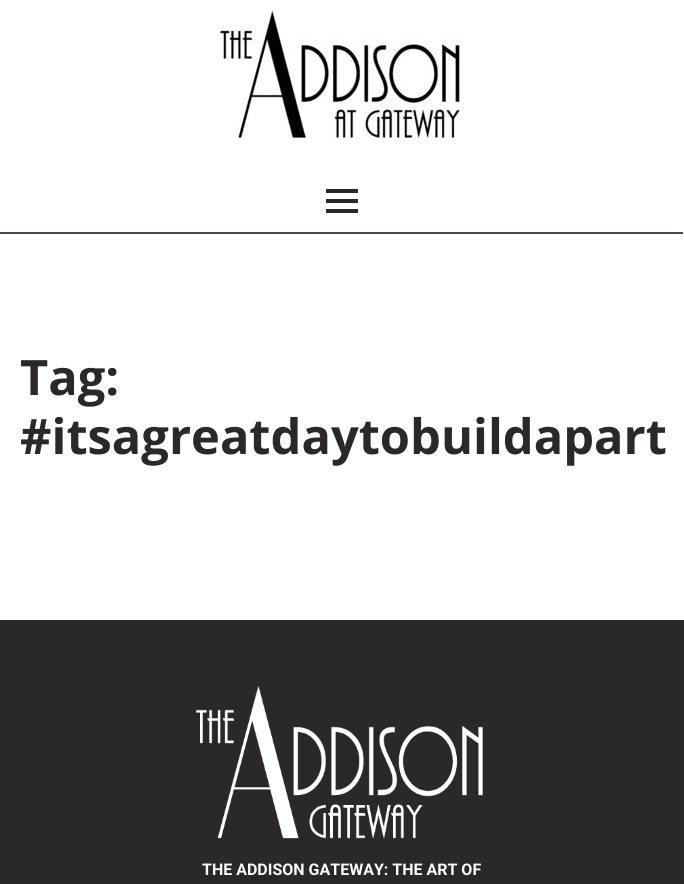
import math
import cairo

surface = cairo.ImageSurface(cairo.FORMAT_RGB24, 684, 884)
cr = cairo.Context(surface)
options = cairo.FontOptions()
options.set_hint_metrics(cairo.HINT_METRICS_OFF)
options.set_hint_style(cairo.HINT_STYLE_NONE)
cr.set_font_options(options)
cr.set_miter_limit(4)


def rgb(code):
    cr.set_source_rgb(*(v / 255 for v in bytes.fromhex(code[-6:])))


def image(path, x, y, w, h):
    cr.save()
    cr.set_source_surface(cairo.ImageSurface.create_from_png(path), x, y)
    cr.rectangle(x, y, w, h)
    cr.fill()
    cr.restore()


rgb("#ffffff")
cr.paint()
image("img/1.png", 217, 6, 247, 136)
for x, y, w, h, color in [
    (326, 199, 32, 4, "#2b2828"),
    (326, 189, 32, 4, "#2b2828"),
    (326, 209, 32, 4, "#2b2828"),
    (0, 232, 683, 2, "#4e4747"),
    (0, 620, 684, 264, "#2b2828"),
]:
    rgb(color)
    cr.rectangle(x, y, w, h)
    cr.fill()
image("img/2.png", 196, 686, 287, 153)
cr.select_font_face("Open Sans", cairo.FONT_SLANT_NORMAL, cairo.FONT_WEIGHT_BOLD)
cr.set_font_size(48.8)
cr.move_to(20, 395)
cr.show_text("Tag:")
cr.move_to(20, 454)
cr.show_text("#itsagreatdaytobuildapart")
cr.select_font_face("Roboto", cairo.FONT_SLANT_NORMAL, cairo.FONT_WEIGHT_BOLD)
cr.set_font_size(16)
rgb("#ffffff")
cr.move_to(202, 875)
cr.show_text("THE ADDISON GATEWAY: THE ART OF")
surface.write_to_png("page.png")
